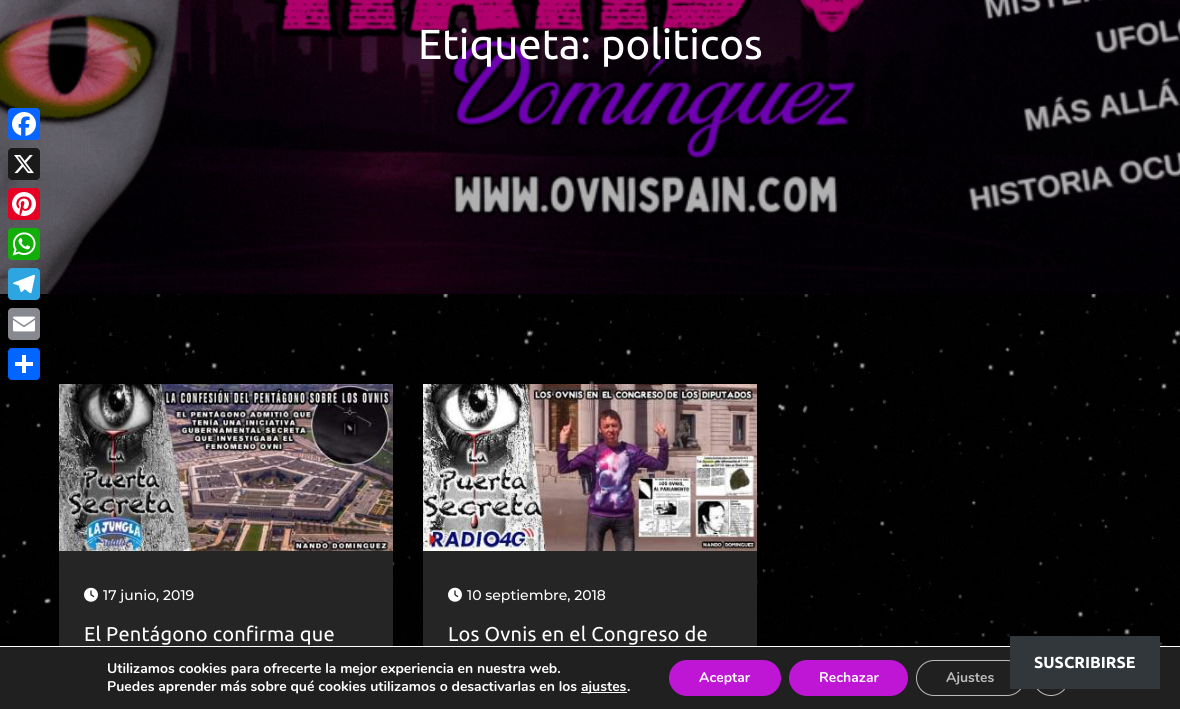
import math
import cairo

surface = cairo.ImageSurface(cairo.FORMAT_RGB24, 1180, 709)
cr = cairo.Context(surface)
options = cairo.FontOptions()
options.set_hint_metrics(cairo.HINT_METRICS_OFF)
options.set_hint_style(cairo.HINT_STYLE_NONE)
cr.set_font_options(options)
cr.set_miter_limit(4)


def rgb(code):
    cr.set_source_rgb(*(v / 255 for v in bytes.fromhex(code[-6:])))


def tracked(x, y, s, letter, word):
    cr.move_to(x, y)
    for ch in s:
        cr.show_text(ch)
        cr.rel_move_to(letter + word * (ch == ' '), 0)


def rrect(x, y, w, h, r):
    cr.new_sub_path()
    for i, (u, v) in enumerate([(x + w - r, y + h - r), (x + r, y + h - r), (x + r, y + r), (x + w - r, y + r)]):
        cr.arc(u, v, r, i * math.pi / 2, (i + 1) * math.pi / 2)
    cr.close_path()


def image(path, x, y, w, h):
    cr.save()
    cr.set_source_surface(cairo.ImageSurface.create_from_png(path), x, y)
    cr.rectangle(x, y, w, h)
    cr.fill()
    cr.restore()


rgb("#ffffff")
cr.paint()
image("img/1.png", 0, 294, 1180, 352)
image("img/8.png", 0, 0, 1180, 294)
rgb("#0866ff")
rrect(8, 108, 32, 32, 4)
cr.fill()
image("img/2.png", 12, 112, 24, 24)
rgb("#1a1a1a")
rrect(8, 148, 32, 32, 4)
cr.fill()
image("img/3.png", 14, 155, 20, 19)
rgb("#e60023")
rrect(8, 188, 32, 32, 4)
cr.fill()
image("img/4.png", 12, 192, 24, 24)
rgb("#12af0a")
rrect(8, 228, 32, 32, 4)
cr.fill()
image("img/5.png", 12, 232, 24, 24)
rgb("#2ca5e0")
rrect(8, 268, 32, 32, 4)
cr.fill()
image("img/6.png", 13, 274, 22, 20)
rgb("#888990")
rrect(8, 308, 32, 32, 4)
cr.fill()
image("img/7.png", 13, 316, 22, 16)
rgb("#0166ff")
rrect(8, 348, 32, 32, 4)
cr.fill()
for x, y, w, h, color in [
    (22, 355, 4, 18, "#ffffff"),
    (15, 362, 18, 4, "#ffffff"),
    (59, 551, 334, 95, "#252525"),
]:
    rgb(color)
    cr.rectangle(x, y, w, h)
    cr.fill()
image("img/9.png", 59, 384, 334, 167)
image("img/10.png", 84, 587, 14, 15)
cr.rectangle(423, 551, 334, 95)
cr.fill()
image("img/11.png", 423, 384, 334, 167)
image("img/10.png", 448, 587, 14, 15)
rgb("#202020")
cr.rectangle(0, 647, 1180, 62)
cr.fill()
rgb("#ffffff")
cr.rectangle(581, 692, 46, 1)
cr.fill()
rgb("#bf15d5")
rrect(669, 660, 112, 36, 18)
cr.fill()
rrect(789, 660, 119, 36, 18)
cr.fill()
rrect(916.5, 660.5, 108, 35, 17.5)
rgb("#bcbcbc")
cr.set_line_width(1)
cr.stroke()
cr.arc(1051, 678, 17.5, 0, 2 * math.pi)
cr.stroke()
rgb("#32373c")
cr.rectangle(1010, 636, 150, 53)
cr.fill()
cr.select_font_face("Ubuntu")
cr.set_font_size(42)
rgb("#ffffff")
cr.move_to(418, 59)
cr.show_text("Etiqueta: politicos")
cr.select_font_face("Montserrat Medium")
cr.set_font_size(14)
cr.move_to(103, 600)
cr.show_text("17 junio, 2019")
cr.select_font_face("Ubuntu")
cr.set_font_size(20)
tracked(84, 641, "El Pentágono confirma que", 0.2, 0)
cr.select_font_face("Montserrat Medium")
cr.set_font_size(14)
cr.move_to(467, 600)
cr.show_text("10 septiembre, 2018")
cr.select_font_face("Ubuntu")
cr.set_font_size(20)
tracked(448, 641, "Los Ovnis en el Congreso de", 0.2, 0)
cr.select_font_face("Nunito", cairo.FONT_SLANT_NORMAL, cairo.FONT_WEIGHT_BOLD)
cr.set_font_size(14)
for x, y, s in [
    (107, 673, "Utilizamos cookies para ofrecerte la mejor experiencia en nuestra web."),
    (107, 691, "Puedes aprender más sobre qué cookies utilizamos o desactivarlas en los"),
    (581, 691, "ajustes"),
    (627, 691, "."),
    (699, 682, "Aceptar"),
    (819, 682, "Rechazar"),
]:
    cr.move_to(x, y)
    cr.show_text(s)
rgb("#bcbcbc")
cr.move_to(946, 682)
cr.show_text("Ajustes")
cr.select_font_face("Ubuntu", cairo.FONT_SLANT_NORMAL, cairo.FONT_WEIGHT_BOLD)
cr.set_font_size(16)
rgb("#ffffff")
cr.move_to(1034, 668)
cr.show_text("SUSCRIBIRSE")
surface.write_to_png("page.png")
